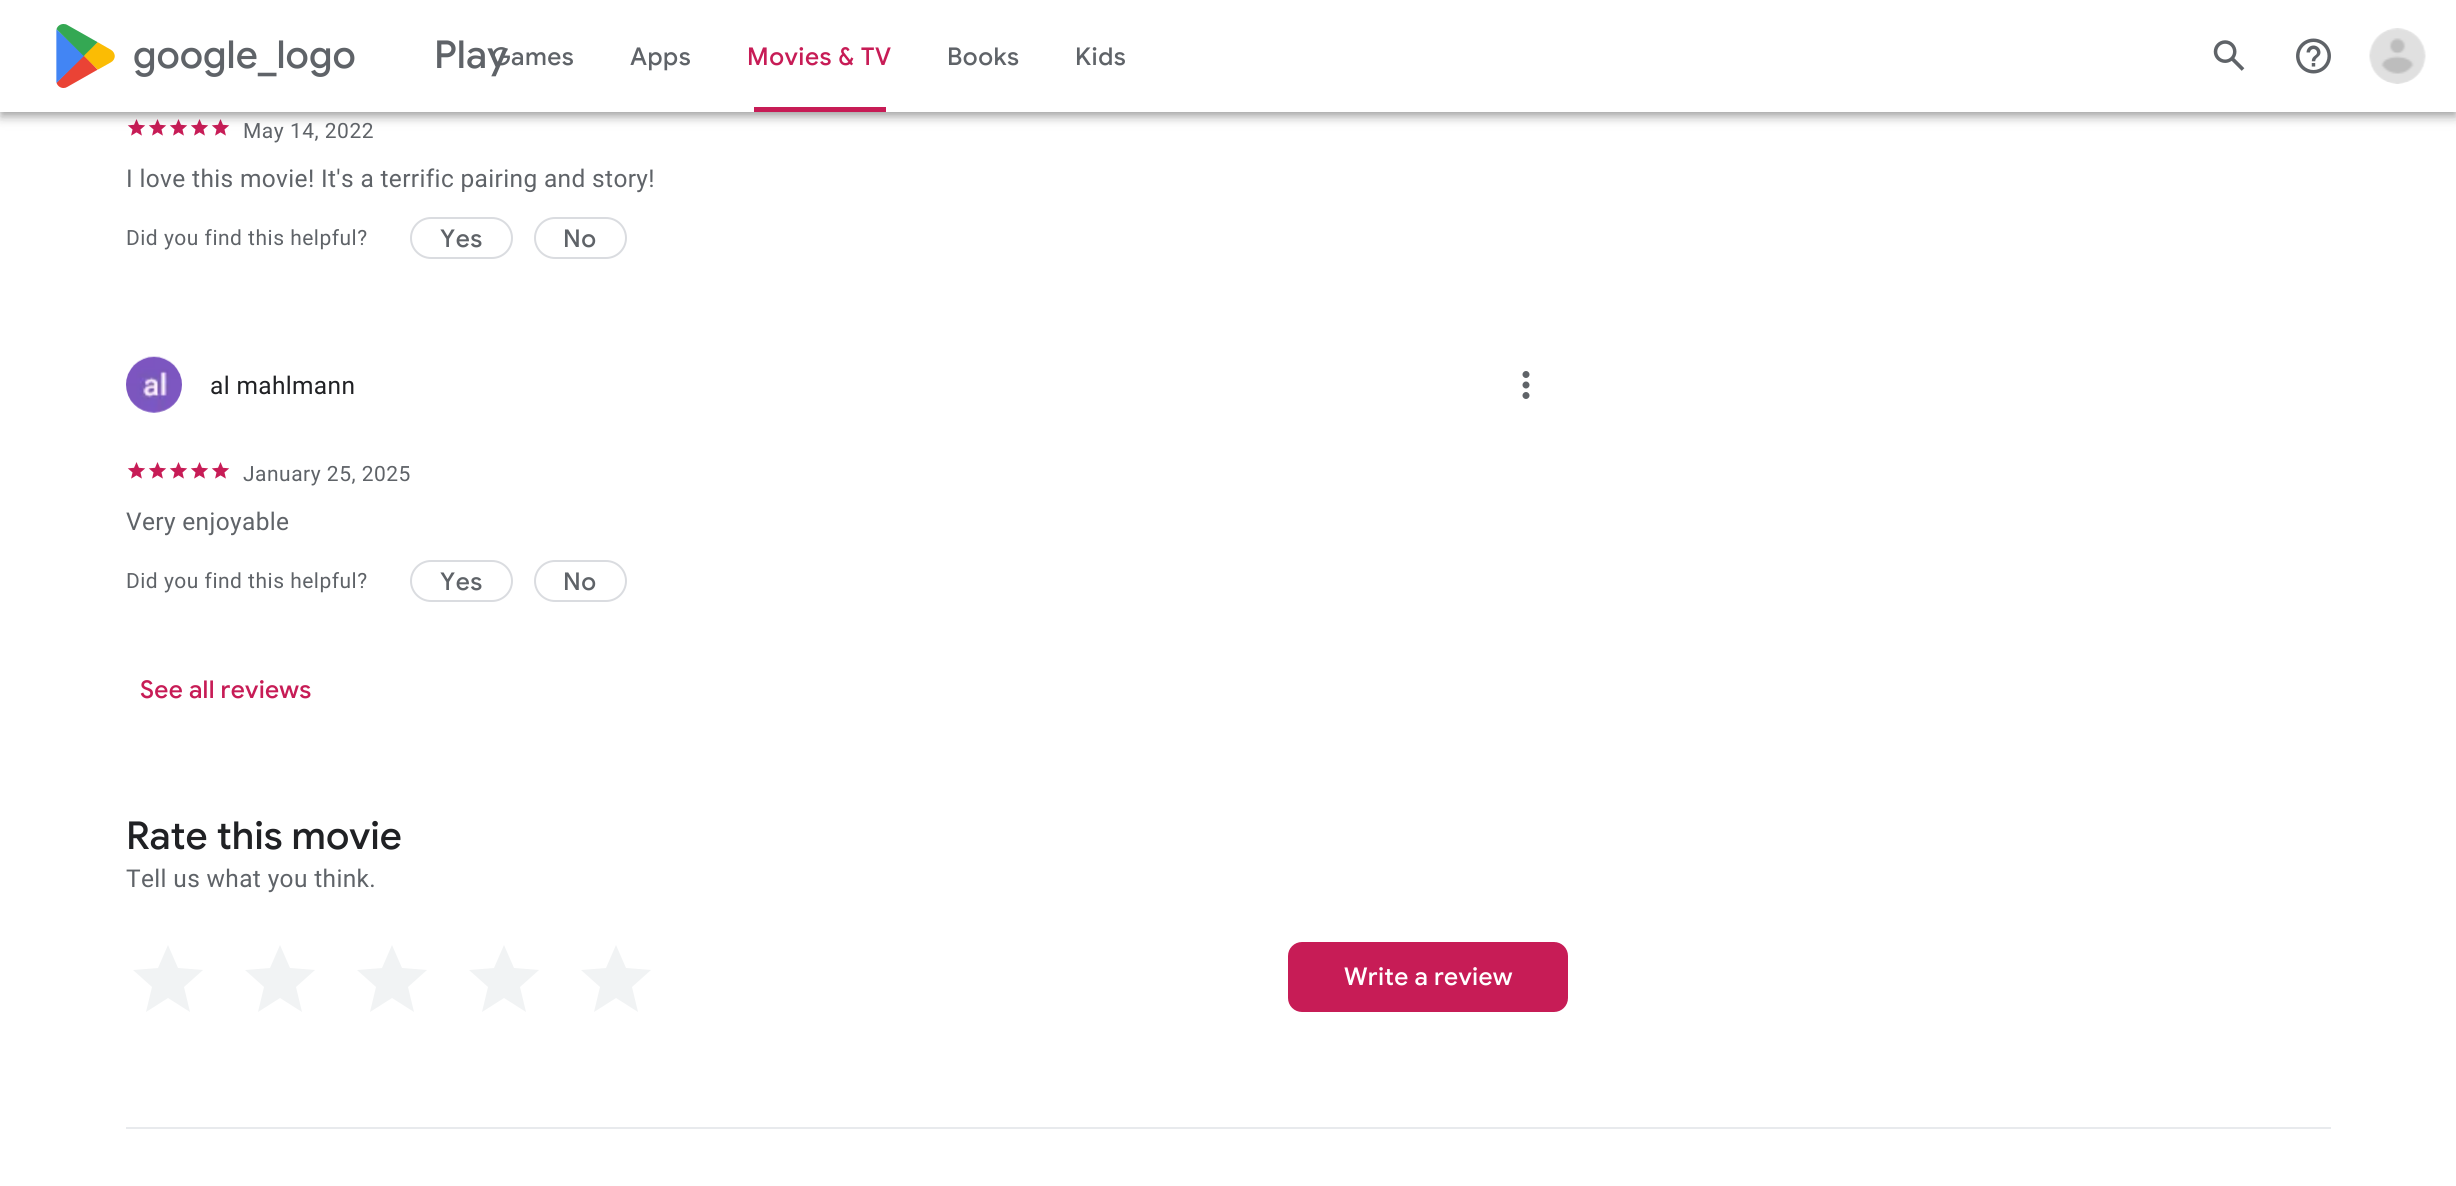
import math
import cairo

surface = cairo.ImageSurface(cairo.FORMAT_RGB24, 2456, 1186)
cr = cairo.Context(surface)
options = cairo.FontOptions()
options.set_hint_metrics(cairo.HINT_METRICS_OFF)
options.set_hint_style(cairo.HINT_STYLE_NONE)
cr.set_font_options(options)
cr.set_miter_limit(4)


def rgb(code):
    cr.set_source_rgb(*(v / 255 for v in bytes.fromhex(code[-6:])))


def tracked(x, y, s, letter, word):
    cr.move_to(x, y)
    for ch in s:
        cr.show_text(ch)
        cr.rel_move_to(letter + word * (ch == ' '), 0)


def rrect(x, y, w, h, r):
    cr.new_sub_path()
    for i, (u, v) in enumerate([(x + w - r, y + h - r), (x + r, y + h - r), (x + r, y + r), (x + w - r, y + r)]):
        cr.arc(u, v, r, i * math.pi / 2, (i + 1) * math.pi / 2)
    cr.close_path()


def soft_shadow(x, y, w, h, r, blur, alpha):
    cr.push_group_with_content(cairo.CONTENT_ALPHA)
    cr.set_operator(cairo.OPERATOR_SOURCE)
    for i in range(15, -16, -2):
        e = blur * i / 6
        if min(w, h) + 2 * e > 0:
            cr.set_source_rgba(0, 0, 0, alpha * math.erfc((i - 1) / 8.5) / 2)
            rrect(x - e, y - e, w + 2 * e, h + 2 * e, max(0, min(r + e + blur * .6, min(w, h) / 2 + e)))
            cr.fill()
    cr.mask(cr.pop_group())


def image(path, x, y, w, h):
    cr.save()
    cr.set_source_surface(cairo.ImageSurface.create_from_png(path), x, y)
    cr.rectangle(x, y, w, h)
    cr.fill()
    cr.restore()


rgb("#ffffff")
cr.paint()
image("img/5.png", 127, 119, 19, 17)
image("img/5.png", 148, 119, 19, 17)
image("img/5.png", 169, 119, 19, 17)
image("img/5.png", 190, 119, 19, 17)
image("img/5.png", 211, 119, 19, 17)
rgb("#000000")
soft_shadow(2, 5, 2453, 109, 0, 3.5, 0.2)
soft_shadow(0, 2, 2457, 112, 0, 9, 0.12)
soft_shadow(0, 7, 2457, 112, 0, 4.5, 0.14)
rgb("#ffffff")
cr.rectangle(0, 0, 2456, 112)
cr.fill()
image("img/1.png", 56, 24, 59, 64)
rgb("#c71c56")
cr.rectangle(754, 107, 132, 5)
cr.fill()
image("img/2.png", 2213, 40, 32, 31)
image("img/3.png", 2296, 38, 35, 36)
image("img/4.png", 2369, 28, 57, 56)
rrect(411, 218, 101, 40, 20)
rgb("#dadce0")
cr.stroke()
rrect(535, 218, 91, 40, 20)
cr.stroke()
image("img/6.png", 126, 356, 56, 57)
image("img/7.png", 1522, 371, 8, 28)
image("img/5.png", 127, 462, 19, 17)
image("img/5.png", 148, 462, 19, 17)
image("img/5.png", 169, 462, 19, 17)
image("img/5.png", 190, 462, 19, 17)
image("img/5.png", 211, 462, 19, 17)
rrect(411, 561, 101, 40, 20)
cr.stroke()
rrect(535, 561, 91, 40, 20)
cr.stroke()
rgb("#f1f3f4")
cr.new_path()
cr.move_to(168, 998)
cr.line_to(190, 1012)
cr.line_to(184, 987)
cr.line_to(203, 970)
cr.line_to(178, 968)
cr.line_to(168, 945)
cr.line_to(158, 968)
cr.line_to(133, 970)
cr.line_to(152, 987)
cr.line_to(146, 1012)
cr.close_path()
cr.fill()
cr.new_path()
cr.move_to(280, 998)
cr.line_to(302, 1012)
cr.line_to(296, 987)
cr.line_to(315, 970)
cr.line_to(290, 968)
cr.line_to(280, 945)
cr.line_to(270, 968)
cr.line_to(245, 970)
cr.line_to(264, 987)
cr.line_to(258, 1012)
cr.close_path()
cr.fill()
cr.new_path()
cr.move_to(392, 998)
cr.line_to(414, 1012)
cr.line_to(408, 987)
cr.line_to(427, 970)
cr.line_to(402, 968)
cr.line_to(392, 945)
cr.line_to(382, 968)
cr.line_to(357, 970)
cr.line_to(376, 987)
cr.line_to(370, 1012)
cr.close_path()
cr.fill()
cr.new_path()
cr.move_to(504, 998)
cr.line_to(526, 1012)
cr.line_to(520, 987)
cr.line_to(539, 970)
cr.line_to(514, 968)
cr.line_to(504, 945)
cr.line_to(494, 968)
cr.line_to(469, 970)
cr.line_to(488, 987)
cr.line_to(482, 1012)
cr.close_path()
cr.fill()
cr.new_path()
cr.move_to(616, 998)
cr.line_to(638, 1012)
cr.line_to(632, 987)
cr.line_to(651, 970)
cr.line_to(626, 968)
cr.line_to(616, 945)
cr.line_to(606, 968)
cr.line_to(581, 970)
cr.line_to(600, 987)
cr.line_to(594, 1012)
cr.close_path()
cr.fill()
rgb("#c71c56")
rrect(1288, 942, 280, 70, 14)
cr.fill()
rgb("#e8eaed")
cr.rectangle(126, 1127, 2205, 2)
cr.fill()
cr.select_font_face("Google Sans Medium")
cr.set_font_size(38.5)
rgb("#5f6368")
tracked(133, 68, "google_logo", 0, 96)
tracked(434, 68, "Play", 0, 96)
cr.set_font_size(24.5)
tracked(491, 65, "Games", 0.5, 0)
tracked(630, 65, "Apps", 0.5, 0)
rgb("#c71c56")
tracked(747, 65, "Movies & TV", 0.5, 0)
rgb("#5f6368")
tracked(947, 65, "Books", 0.5, 0)
tracked(1075, 65, "Kids", 0.5, 0)
cr.select_font_face("Roboto")
cr.set_font_size(21)
tracked(243, 138, "May 14, 2022", 0.5, 0)
cr.set_font_size(24.5)
tracked(126, 187, "I love this movie! It's a terrific pairing and story!", 0.35, 0)
cr.set_font_size(21)
tracked(126, 245, "Did you find this helpful?", 0.5, 0)
cr.select_font_face("Google Sans Medium")
cr.set_font_size(24.5)
tracked(440, 247, "Yes", 0.5, 0)
tracked(563, 247, "No", 0.5, 0)
cr.select_font_face("Roboto")
rgb("#202124")
tracked(210, 394, "al mahlmann", 0.35, 0)
cr.set_font_size(21)
rgb("#5f6368")
tracked(243, 481, "January 25, 2025", 0.5, 0)
cr.set_font_size(24.5)
tracked(126, 530, "Very enjoyable", 0.35, 0)
cr.set_font_size(21)
tracked(126, 588, "Did you find this helpful?", 0.5, 0)
cr.select_font_face("Google Sans Medium")
cr.set_font_size(24.5)
tracked(440, 590, "Yes", 0.5, 0)
tracked(563, 590, "No", 0.5, 0)
rgb("#c71c56")
tracked(140, 698, "See all reviews", 0.25, 0)
cr.set_font_size(38.5)
rgb("#202124")
cr.move_to(126, 849)
cr.show_text("Rate this movie")
cr.select_font_face("Roboto")
cr.set_font_size(24.5)
rgb("#5f6368")
tracked(126, 887, "Tell us what you think.", 0.35, 0)
cr.select_font_face("Google Sans Medium")
rgb("#ffffff")
tracked(1344, 985, "Write a review", 0.25, 0)
surface.write_to_png("page.png")
